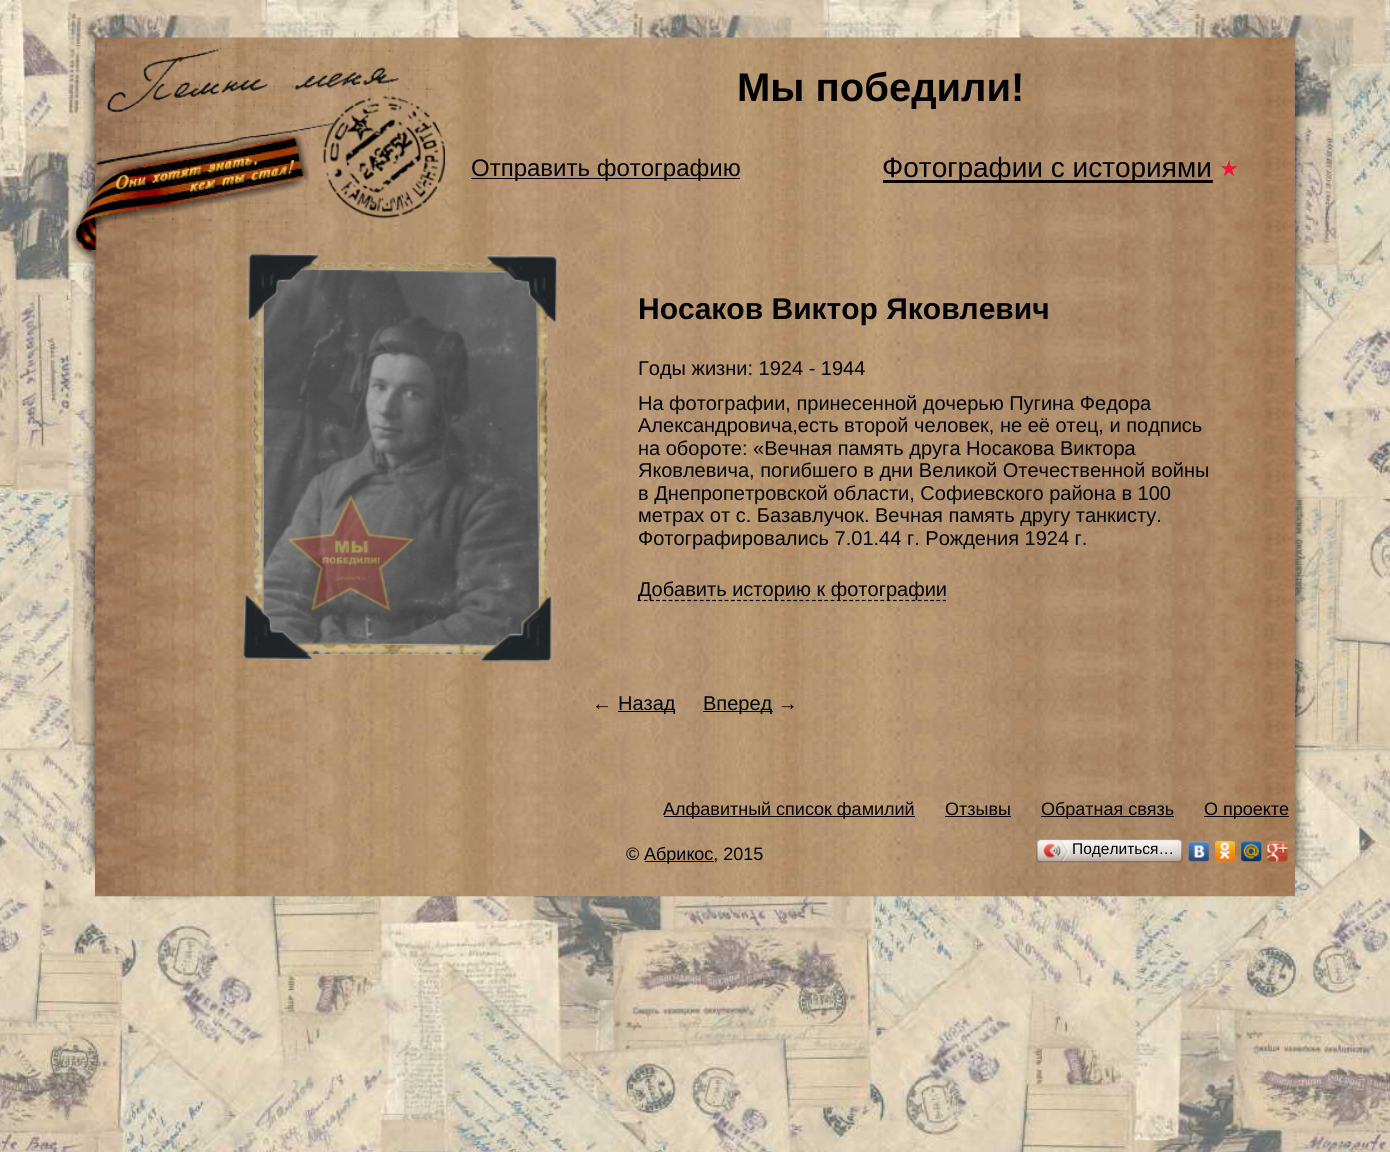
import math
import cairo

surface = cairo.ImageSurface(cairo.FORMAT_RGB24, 1390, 1152)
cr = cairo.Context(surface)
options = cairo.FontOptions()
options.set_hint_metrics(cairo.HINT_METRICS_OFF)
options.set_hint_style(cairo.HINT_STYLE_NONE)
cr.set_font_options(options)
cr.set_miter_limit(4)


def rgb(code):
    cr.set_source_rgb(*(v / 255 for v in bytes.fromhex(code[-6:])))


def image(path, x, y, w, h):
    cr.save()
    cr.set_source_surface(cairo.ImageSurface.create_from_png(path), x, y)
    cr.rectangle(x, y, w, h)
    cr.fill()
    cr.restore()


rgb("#ffffff")
cr.paint()
image("img/1.png", 0, 0, 1390, 1152)
image("img/2.png", 83, 47, 1224, 850)
image("img/3.png", 95, 37, 1200, 860)
image("img/4.png", 95, 37, 350, 192)
image("img/5.png", 70, 132, 240, 127)
rgb("#000000")
cr.rectangle(471, 178, 269, 1)
cr.fill()
cr.rectangle(883, 180, 330, 3)
cr.fill()
image("img/6.png", 1220, 160, 18, 17)
image("img/8.png", 263, 266, 276, 388)
image("img/7.png", 242, 253, 316, 409)
cr.new_path()
cr.move_to(637.5, 600.5)
cr.line_to(946, 600.5)
cr.set_line_width(1.2)
cr.set_dash([3.75, 2.48])
cr.stroke()
for x, y, w, h, color in [
    (618, 711, 57, 1, "#000000"),
    (703, 711, 70, 1, "#000000"),
    (664, 816, 251, 1, "#000000"),
    (945, 816, 66, 1, "#000000"),
    (1041, 816, 133, 1, "#000000"),
    (1204, 816, 85, 1, "#000000"),
    (645, 861, 69, 1, "#000000"),
]:
    rgb(color)
    cr.rectangle(x, y, w, h)
    cr.fill()
image("img/9.png", 1040, 839, 139, 24)
image("img/10.png", 1036, 839, 4, 24)
image("img/11.png", 1043, 840, 26, 22)
image("img/12.png", 1178, 838, 5, 25)
image("img/13.png", 1188, 841, 21, 21)
image("img/14.png", 1215, 841, 20, 21)
image("img/15.png", 1241, 841, 21, 21)
image("img/16.png", 1267, 841, 21, 21)
cr.select_font_face("Liberation Sans", cairo.FONT_SLANT_NORMAL, cairo.FONT_WEIGHT_BOLD)
cr.set_font_size(40)
cr.move_to(737, 101)
cr.show_text("Мы победили!")
cr.select_font_face("Liberation Sans")
cr.set_font_size(24)
cr.move_to(471, 176)
cr.show_text("Отправить фотографию")
cr.set_font_size(28)
cr.move_to(882, 177)
cr.show_text("Фотографии с историями")
cr.select_font_face("Liberation Sans", cairo.FONT_SLANT_NORMAL, cairo.FONT_WEIGHT_BOLD)
cr.set_font_size(30)
cr.move_to(638, 319)
cr.show_text("Носаков Виктор Яковлевич")
cr.select_font_face("Liberation Sans")
cr.set_font_size(20)
for x, y, s in [
    (638, 375, "Годы жизни: 1924 - 1944"),
    (638, 410, "На фотографии, принесенной дочерью Пугина Федора"),
    (638, 432, "Александровича,есть второй человек, не её отец, и подпись"),
    (638, 455, "на обороте: «Вечная память друга Носакова Виктора"),
    (638, 477, "Яковлевича, погибшего в дни Великой Отечественной войны"),
    (638, 500, "в Днепропетровской области, Софиевского района в 100"),
    (638, 522, "метрах от с. Базавлучок. Вечная память другу танкисту."),
    (638, 545, "Фотографировались 7.01.44 г. Рождения 1924 г."),
    (638, 596, "Добавить историю к фотографии"),
    (592, 710, "←"),
    (618, 710, "Назад"),
    (703, 710, "Вперед →"),
]:
    cr.move_to(x, y)
    cr.show_text(s)
cr.set_font_size(18)
for x, y, s in [
    (663, 815, "Алфавитный список фамилий"),
    (945, 815, "Отзывы"),
    (1041, 815, "Обратная связь"),
    (1204, 815, "О проекте"),
    (626, 860, "©"),
    (644, 860, "Абрикос, 2015"),
]:
    cr.move_to(x, y)
    cr.show_text(s)
cr.set_font_size(15.5)
cr.move_to(1072, 854)
cr.show_text("Поделиться…")
surface.write_to_png("page.png")
